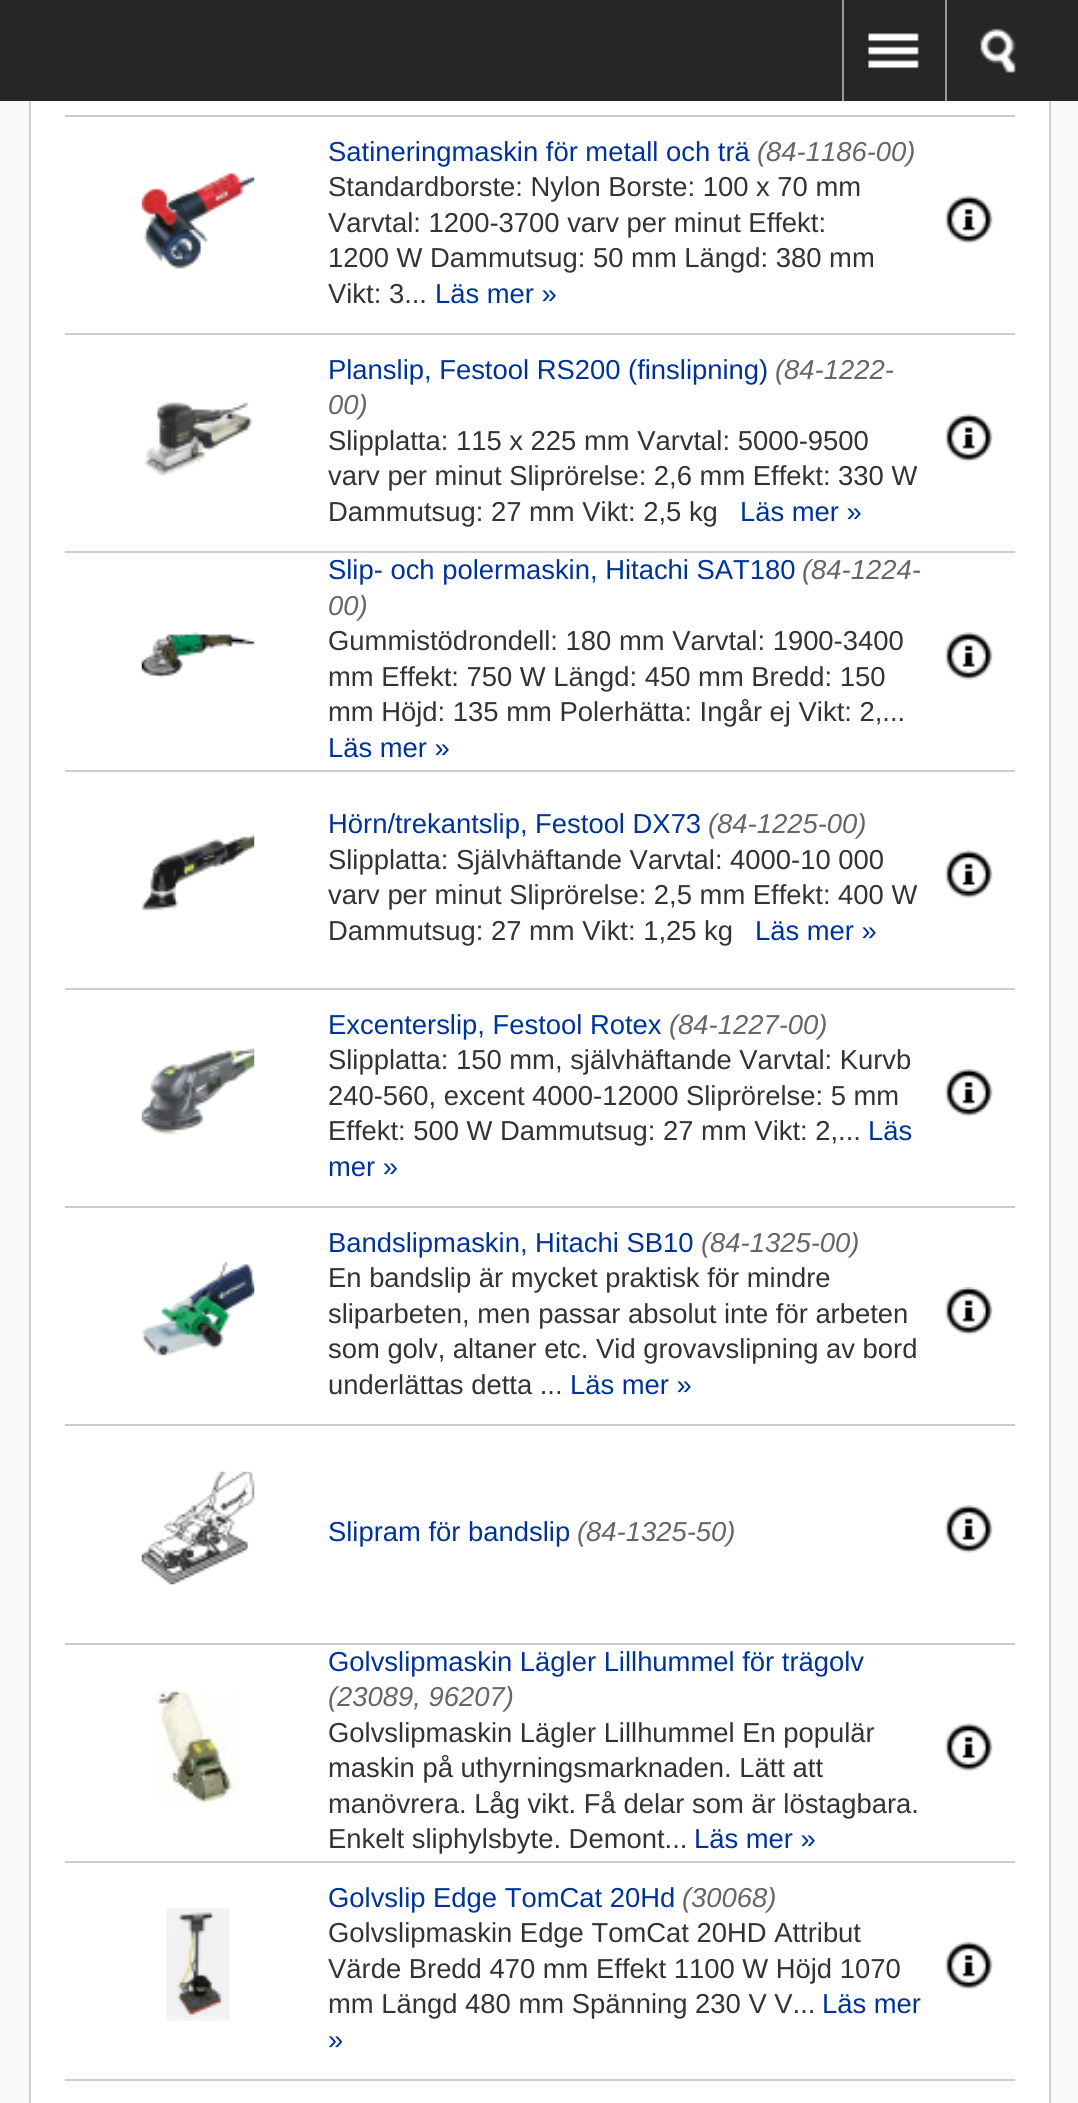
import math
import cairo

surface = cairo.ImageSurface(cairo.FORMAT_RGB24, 1078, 2103)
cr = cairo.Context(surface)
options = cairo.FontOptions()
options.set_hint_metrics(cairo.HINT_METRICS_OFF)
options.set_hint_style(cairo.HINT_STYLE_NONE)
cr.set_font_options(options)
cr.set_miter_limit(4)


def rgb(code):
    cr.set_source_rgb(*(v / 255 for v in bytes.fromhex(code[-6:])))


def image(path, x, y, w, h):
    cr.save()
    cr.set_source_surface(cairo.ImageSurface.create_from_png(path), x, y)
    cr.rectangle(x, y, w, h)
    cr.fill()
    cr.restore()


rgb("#f8f8f8")
cr.paint()
rgb("#262626")
cr.rectangle(0, 0, 1078, 101)
cr.fill()
rgb("#999999")
cr.rectangle(842, 0, 2, 101)
cr.fill()
image("img/1.png", 868, 33, 51, 36)
cr.rectangle(945, 0, 2, 101)
cr.fill()
image("img/2.png", 980, 28, 36, 45)
for x, y, w, h, color in [
    (31, 101, 1018, 2002, "#ffffff"),
    (1049, 101, 2, 2002, "#cccccc"),
    (29, 101, 2, 2002, "#cccccc"),
    (65, 115, 950, 2, "#cccccc"),
]:
    rgb(color)
    cr.rectangle(x, y, w, h)
    cr.fill()
image("img/3.png", 141, 172, 114, 97)
cr.rectangle(65, 333, 950, 2)
cr.fill()
image("img/4.png", 945, 196, 48, 48)
image("img/5.png", 144, 402, 109, 75)
cr.rectangle(65, 551, 950, 2)
cr.fill()
image("img/6.png", 945, 414, 48, 48)
cr.rectangle(65, 770, 950, 2)
cr.fill()
image("img/7.png", 945, 632, 48, 48)
image("img/8.png", 141, 632, 114, 46)
image("img/9.png", 141, 834, 114, 78)
cr.rectangle(65, 988, 950, 2)
cr.fill()
image("img/10.png", 945, 850, 48, 48)
image("img/11.png", 141, 1048, 114, 87)
cr.rectangle(65, 1206, 950, 2)
cr.fill()
image("img/4.png", 945, 1069, 48, 48)
image("img/12.png", 141, 1261, 114, 95)
cr.rectangle(65, 1424, 950, 2)
cr.fill()
image("img/6.png", 945, 1287, 48, 48)
image("img/13.png", 141, 1471, 114, 114)
cr.rectangle(65, 1643, 950, 2)
cr.fill()
image("img/14.png", 945, 1505, 48, 48)
image("img/15.png", 155, 1690, 84, 113)
cr.rectangle(65, 1861, 950, 2)
cr.fill()
image("img/10.png", 945, 1723, 48, 48)
image("img/16.png", 166, 1908, 64, 113)
cr.rectangle(65, 2079, 950, 2)
cr.fill()
image("img/4.png", 945, 1942, 48, 48)
cr.select_font_face("Liberation Sans")
cr.set_font_size(27.4)
rgb("#003399")
cr.move_to(328, 161)
cr.show_text("Satineringmaskin för metall och trä")
cr.select_font_face("Liberation Sans", cairo.FONT_SLANT_ITALIC)
rgb("#666666")
cr.move_to(757, 161)
cr.show_text("(84-1186-00)")
cr.select_font_face("Liberation Sans")
rgb("#333333")
for x, y, s in [
    (328, 196, "Standardborste: Nylon Borste: 100 x 70 mm"),
    (328, 232, "Varvtal: 1200-3700 varv per minut Effekt:"),
    (328, 267, "1200 W Dammutsug: 50 mm Längd: 380 mm"),
    (328, 303, "Vikt: 3..."),
]:
    cr.move_to(x, y)
    cr.show_text(s)
rgb("#003399")
cr.move_to(435, 303)
cr.show_text("Läs mer »")
cr.move_to(328, 379)
cr.show_text("Planslip, Festool RS200 (finslipning)")
cr.select_font_face("Liberation Sans", cairo.FONT_SLANT_ITALIC)
rgb("#666666")
cr.move_to(775, 379)
cr.show_text("(84-1222-")
cr.move_to(328, 414)
cr.show_text("00)")
cr.select_font_face("Liberation Sans")
rgb("#333333")
for x, y, s in [
    (328, 450, "Slipplatta: 115 x 225 mm Varvtal: 5000-9500"),
    (328, 485, "varv per minut Sliprörelse: 2,6 mm Effekt: 330 W"),
    (328, 521, "Dammutsug: 27 mm Vikt: 2,5 kg"),
]:
    cr.move_to(x, y)
    cr.show_text(s)
rgb("#003399")
cr.move_to(740, 521)
cr.show_text("Läs mer »")
cr.move_to(328, 579)
cr.show_text("Slip- och polermaskin, Hitachi SAT180")
cr.select_font_face("Liberation Sans", cairo.FONT_SLANT_ITALIC)
rgb("#666666")
cr.move_to(802, 579)
cr.show_text("(84-1224-")
cr.move_to(328, 615)
cr.show_text("00)")
cr.select_font_face("Liberation Sans")
rgb("#333333")
for x, y, s in [
    (328, 650, "Gummistödrondell: 180 mm Varvtal: 1900-3400"),
    (328, 686, "mm Effekt: 750 W Längd: 450 mm Bredd: 150"),
    (328, 721, "mm Höjd: 135 mm Polerhätta: Ingår ej Vikt: 2,..."),
]:
    cr.move_to(x, y)
    cr.show_text(s)
rgb("#003399")
cr.move_to(328, 757)
cr.show_text("Läs mer »")
cr.move_to(328, 833)
cr.show_text("Hörn/trekantslip, Festool DX73")
cr.select_font_face("Liberation Sans", cairo.FONT_SLANT_ITALIC)
rgb("#666666")
cr.move_to(708, 833)
cr.show_text("(84-1225-00)")
cr.select_font_face("Liberation Sans")
rgb("#333333")
for x, y, s in [
    (328, 869, "Slipplatta: Självhäftande Varvtal: 4000-10 000"),
    (328, 904, "varv per minut Sliprörelse: 2,5 mm Effekt: 400 W"),
    (328, 940, "Dammutsug: 27 mm Vikt: 1,25 kg"),
]:
    cr.move_to(x, y)
    cr.show_text(s)
rgb("#003399")
cr.move_to(755, 940)
cr.show_text("Läs mer »")
cr.move_to(328, 1034)
cr.show_text("Excenterslip, Festool Rotex")
cr.select_font_face("Liberation Sans", cairo.FONT_SLANT_ITALIC)
rgb("#666666")
cr.move_to(669, 1034)
cr.show_text("(84-1227-00)")
cr.select_font_face("Liberation Sans")
rgb("#333333")
for x, y, s in [
    (328, 1069, "Slipplatta: 150 mm, självhäftande Varvtal: Kurvb"),
    (328, 1105, "240-560, excent 4000-12000 Sliprörelse: 5 mm"),
    (328, 1140, "Effekt: 500 W Dammutsug: 27 mm Vikt: 2,..."),
]:
    cr.move_to(x, y)
    cr.show_text(s)
rgb("#003399")
for x, y, s in [
    (868, 1140, "Läs"),
    (328, 1176, "mer »"),
    (328, 1252, "Bandslipmaskin, Hitachi SB10"),
]:
    cr.move_to(x, y)
    cr.show_text(s)
cr.select_font_face("Liberation Sans", cairo.FONT_SLANT_ITALIC)
rgb("#666666")
cr.move_to(701, 1252)
cr.show_text("(84-1325-00)")
cr.select_font_face("Liberation Sans")
rgb("#333333")
for x, y, s in [
    (328, 1287, "En bandslip är mycket praktisk för mindre"),
    (328, 1323, "sliparbeten, men passar absolut inte för arbeten"),
    (328, 1358, "som golv, altaner etc. Vid grovavslipning av bord"),
    (328, 1394, "underlättas detta ..."),
]:
    cr.move_to(x, y)
    cr.show_text(s)
rgb("#003399")
cr.move_to(570, 1394)
cr.show_text("Läs mer »")
cr.move_to(328, 1541)
cr.show_text("Slipram för bandslip")
cr.select_font_face("Liberation Sans", cairo.FONT_SLANT_ITALIC)
rgb("#666666")
cr.move_to(577, 1541)
cr.show_text("(84-1325-50)")
cr.select_font_face("Liberation Sans")
rgb("#003399")
cr.move_to(328, 1671)
cr.show_text("Golvslipmaskin Lägler Lillhummel för trägolv")
cr.select_font_face("Liberation Sans", cairo.FONT_SLANT_ITALIC)
rgb("#666666")
cr.move_to(328, 1706)
cr.show_text("(23089, 96207)")
cr.select_font_face("Liberation Sans")
rgb("#333333")
for x, y, s in [
    (328, 1742, "Golvslipmaskin Lägler Lillhummel En populär"),
    (328, 1777, "maskin på uthyrningsmarknaden. Lätt att"),
    (328, 1813, "manövrera. Låg vikt. Få delar som är löstagbara."),
    (328, 1848, "Enkelt sliphylsbyte. Demont..."),
]:
    cr.move_to(x, y)
    cr.show_text(s)
rgb("#003399")
cr.move_to(694, 1848)
cr.show_text("Läs mer »")
cr.move_to(328, 1907)
cr.show_text("Golvslip Edge TomCat 20Hd")
cr.select_font_face("Liberation Sans", cairo.FONT_SLANT_ITALIC)
rgb("#666666")
cr.move_to(682, 1907)
cr.show_text("(30068)")
cr.select_font_face("Liberation Sans")
rgb("#333333")
for x, y, s in [
    (328, 1942, "Golvslipmaskin Edge TomCat 20HD Attribut"),
    (328, 1978, "Värde Bredd 470 mm Effekt 1100 W Höjd 1070"),
    (328, 2013, "mm Längd 480 mm Spänning 230 V V..."),
]:
    cr.move_to(x, y)
    cr.show_text(s)
rgb("#003399")
cr.move_to(822, 2013)
cr.show_text("Läs mer")
cr.move_to(328, 2049)
cr.show_text("»")
surface.write_to_png("page.png")
